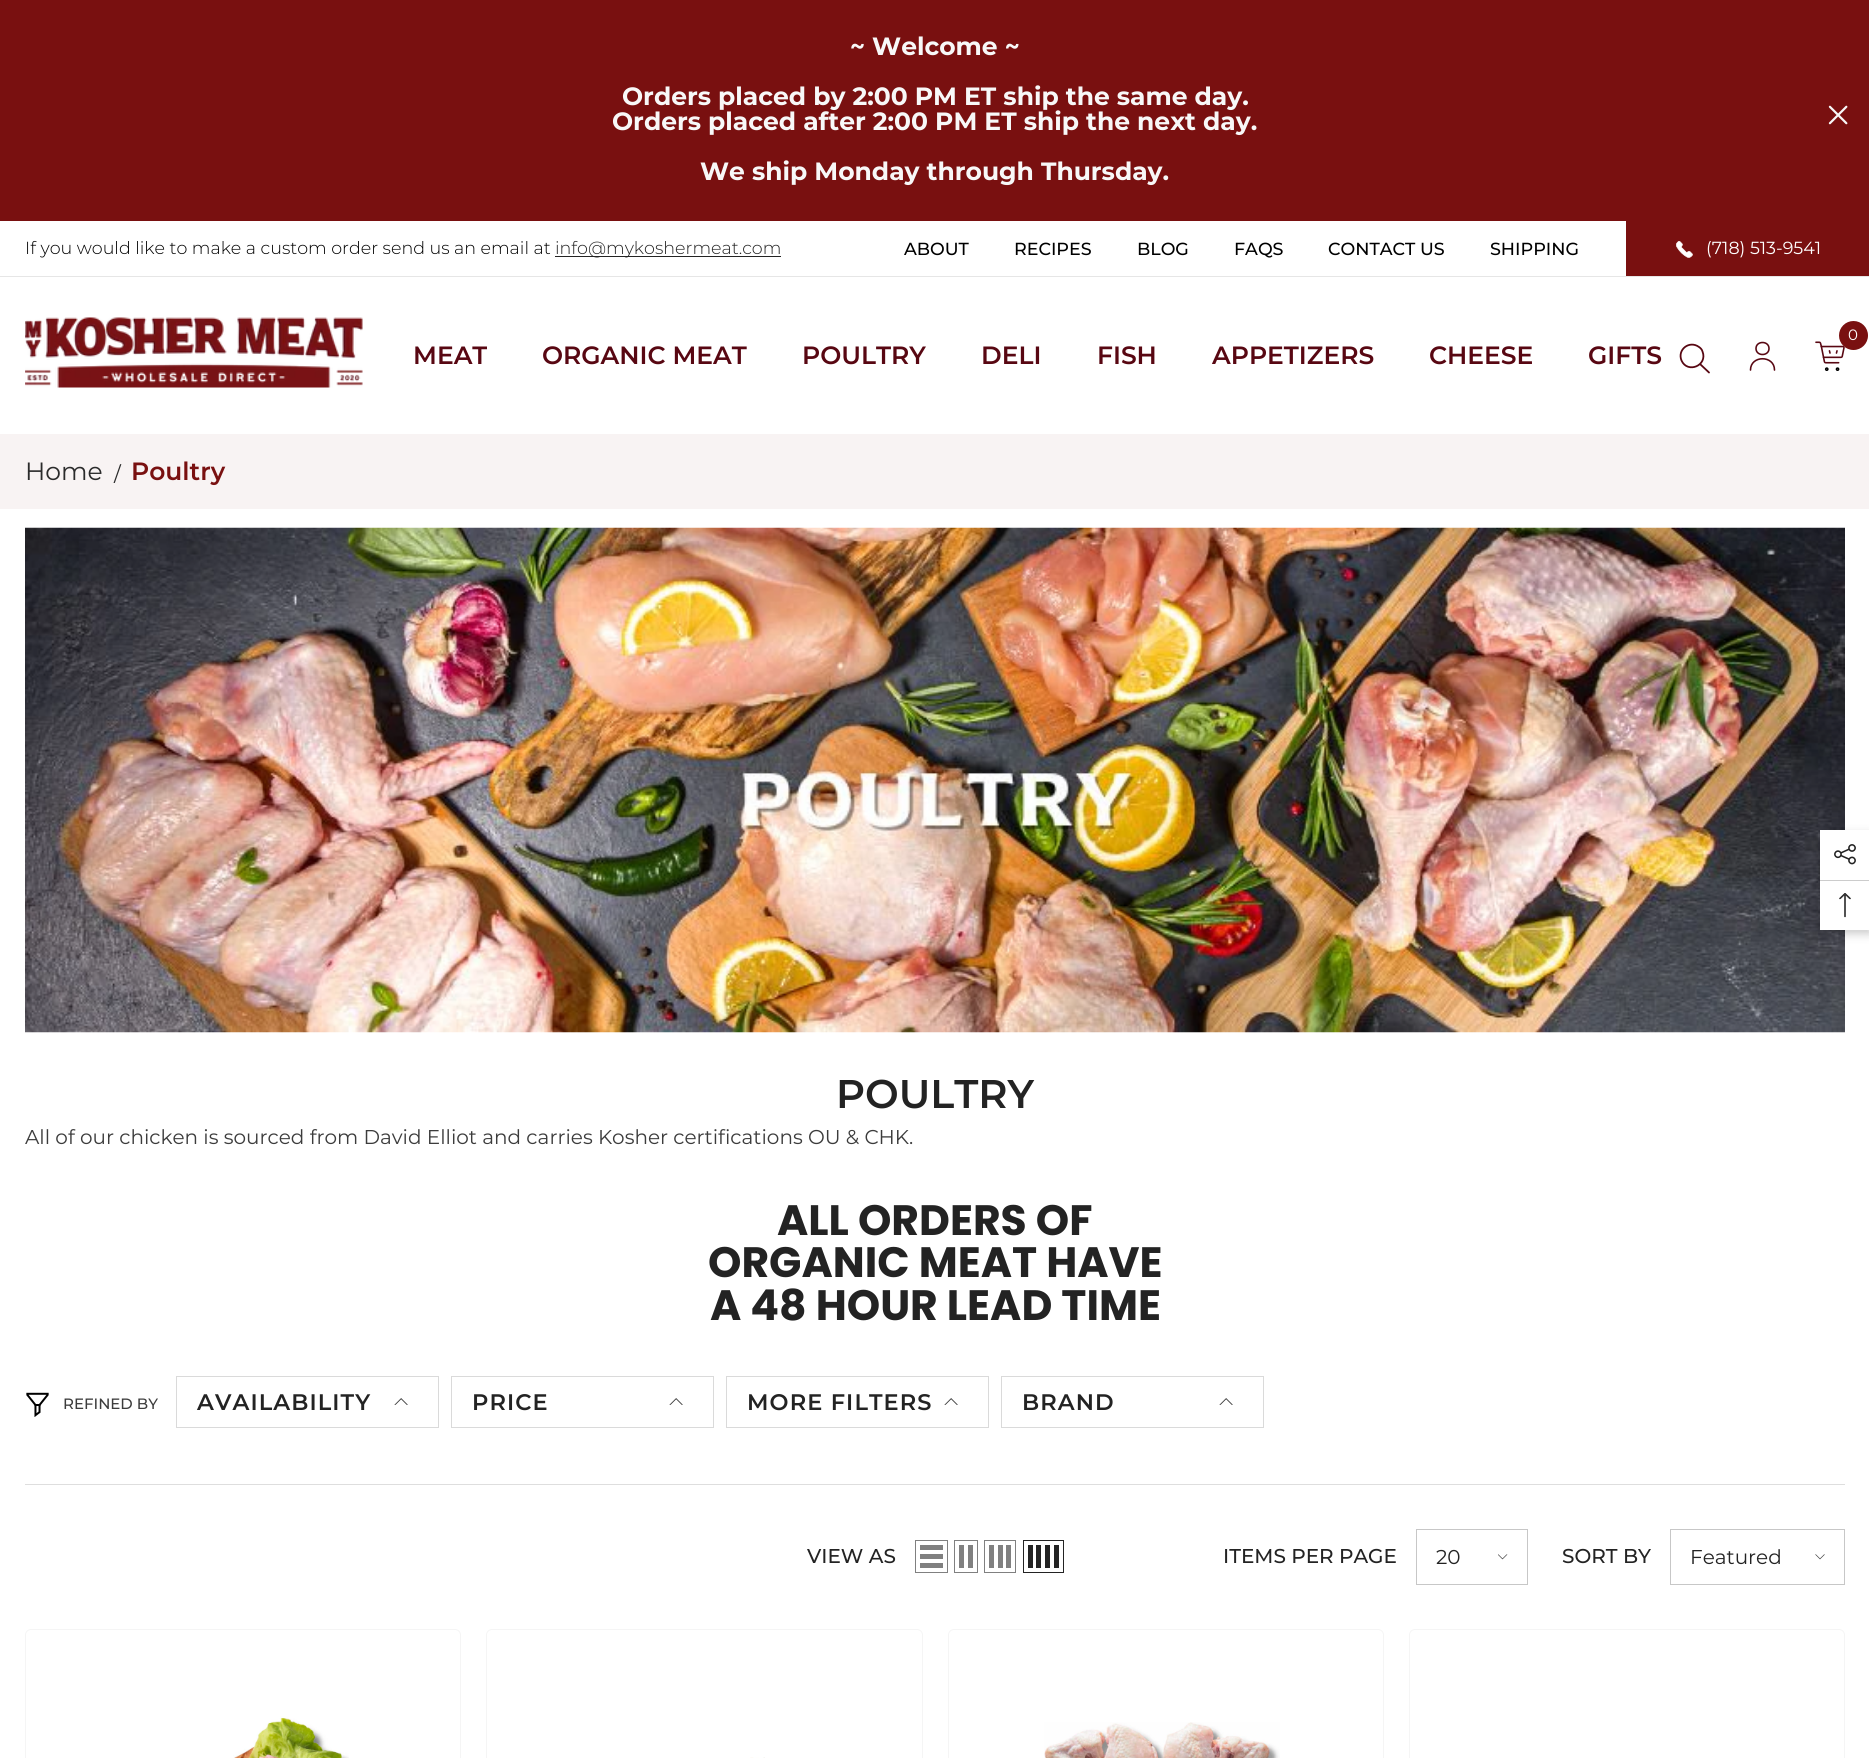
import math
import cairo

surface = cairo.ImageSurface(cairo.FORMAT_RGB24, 1869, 1758)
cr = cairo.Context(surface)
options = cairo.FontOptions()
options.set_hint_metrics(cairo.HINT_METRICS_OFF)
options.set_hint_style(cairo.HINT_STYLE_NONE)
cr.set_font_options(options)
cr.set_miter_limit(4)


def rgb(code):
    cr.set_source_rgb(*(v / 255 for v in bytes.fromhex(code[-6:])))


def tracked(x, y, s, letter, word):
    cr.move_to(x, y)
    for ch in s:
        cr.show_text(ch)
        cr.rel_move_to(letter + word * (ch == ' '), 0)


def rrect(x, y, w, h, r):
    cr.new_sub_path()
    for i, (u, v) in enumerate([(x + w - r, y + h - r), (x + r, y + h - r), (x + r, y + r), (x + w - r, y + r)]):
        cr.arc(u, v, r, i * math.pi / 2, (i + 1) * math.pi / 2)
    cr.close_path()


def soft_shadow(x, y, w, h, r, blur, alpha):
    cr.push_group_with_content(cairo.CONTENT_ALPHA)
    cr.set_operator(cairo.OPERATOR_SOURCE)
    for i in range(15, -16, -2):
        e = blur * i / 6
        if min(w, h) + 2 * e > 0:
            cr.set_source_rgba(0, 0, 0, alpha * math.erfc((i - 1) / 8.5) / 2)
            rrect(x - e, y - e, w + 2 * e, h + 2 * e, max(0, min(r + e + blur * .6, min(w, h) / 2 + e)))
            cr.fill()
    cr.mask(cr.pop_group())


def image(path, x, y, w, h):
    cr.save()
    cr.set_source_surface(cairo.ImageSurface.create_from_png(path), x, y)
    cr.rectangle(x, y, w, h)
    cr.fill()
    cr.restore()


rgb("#ffffff")
cr.paint()
rgb("#791010")
cr.rectangle(0, 0, 1869, 221)
cr.fill()
image("img/1.png", 1828, 105, 20, 20)
for x, y, w, h, color in [
    (0, 276, 1869, 1, "#e6e6e6"),
    (555, 256, 226, 1, "#232323"),
    (1626, 221, 243, 55, "#791010"),
]:
    rgb(color)
    cr.rectangle(x, y, w, h)
    cr.fill()
image("img/2.png", 1676, 241, 17, 17)
image("img/3.png", 25, 317, 338, 71)
image("img/4.png", 1815, 341, 30, 30)
cr.arc(1853.5, 335.5, 14.5, 0, 2 * math.pi)
cr.fill()
cr.new_path()
cr.move_to(1681.5, 360.5)
cr.curve_to(1687.5, 374, 1708, 365.5, 1702.5, 351.5)
cr.curve_to(1702, 349.5, 1700.5, 348, 1699, 347)
cr.curve_to(1689.5, 340, 1677, 349.5, 1681.5, 360.5)
cr.close_path()
cr.move_to(1700, 364)
cr.line_to(1709, 372.5)
rgb("#580712")
cr.set_line_width(1.8)
cr.set_line_cap(cairo.LINE_CAP_ROUND)
cr.set_line_join(cairo.LINE_JOIN_ROUND)
cr.stroke()
cr.new_path()
cr.move_to(1756, 348.5)
cr.curve_to(1756, 356.5, 1769, 356.5, 1769, 348.5)
cr.curve_to(1769, 340.5, 1756, 340.5, 1756, 348.5)
cr.close_path()
cr.move_to(1750.5, 370)
cr.curve_to(1750.5, 355, 1774.5, 355, 1774.5, 370)
cr.set_line_width(1.6)
cr.stroke()
rgb("#f8f3f3")
cr.rectangle(0, 434, 1869, 75)
cr.fill()
image("img/5.png", 25, 527, 1820, 506)
image("img/6.png", 26, 1392, 23, 25)
cr.rectangle(176.5, 1376.5, 262, 51)
rgb("#dadada")
cr.set_line_width(1)
cr.set_line_cap(cairo.LINE_CAP_BUTT)
cr.set_line_join(cairo.LINE_JOIN_MITER)
cr.stroke()
image("img/7.png", 394, 1398, 14, 7)
cr.rectangle(451.5, 1376.5, 262, 51)
cr.stroke()
image("img/7.png", 669, 1398, 14, 7)
cr.rectangle(726.5, 1376.5, 262, 51)
cr.stroke()
image("img/7.png", 944, 1398, 14, 7)
cr.rectangle(1001.5, 1376.5, 262, 51)
cr.stroke()
image("img/7.png", 1219, 1398, 14, 7)
rgb("#dedede")
cr.rectangle(25, 1484, 1820, 1)
cr.fill()
cr.rectangle(915.5, 1540.5, 32, 32)
rgb("#808080")
cr.stroke()
for x, y, w, h, color in [
    (920, 1563, 23, 5, "#808080"),
    (920, 1554, 23, 5, "#808080"),
    (920, 1545, 23, 5, "#808080"),
]:
    rgb(color)
    cr.rectangle(x, y, w, h)
    cr.fill()
cr.rectangle(954.5, 1540.5, 23, 32)
cr.stroke()
cr.rectangle(968, 1545, 5, 23)
cr.fill()
cr.rectangle(959, 1545, 5, 23)
cr.fill()
cr.rectangle(984.5, 1540.5, 31, 32)
cr.stroke()
for x, y, w, h, color in [
    (1006, 1545, 5, 23, "#808080"),
    (998, 1545, 5, 23, "#808080"),
    (989, 1545, 5, 23, "#808080"),
]:
    rgb(color)
    cr.rectangle(x, y, w, h)
    cr.fill()
cr.rectangle(1023.5, 1540.5, 40, 32)
rgb("#232323")
cr.stroke()
for x, y, w, h, color in [
    (1054, 1545, 5, 23, "#232323"),
    (1045, 1545, 5, 23, "#232323"),
    (1036, 1545, 5, 23, "#232323"),
    (1028, 1545, 5, 23, "#232323"),
]:
    rgb(color)
    cr.rectangle(x, y, w, h)
    cr.fill()
cr.rectangle(1416.5, 1529.5, 111, 55)
rgb("#c7c7c7")
cr.stroke()
image("img/8.png", 1498, 1554, 10, 6)
cr.rectangle(1670.5, 1529.5, 174, 55)
cr.stroke()
image("img/9.png", 1815, 1554, 10, 6)
rrect(25.5, 1629.5, 435, 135, 5.5)
rgb("#f5f5f5")
cr.stroke()
image("img/10.png", 233, 1716, 116, 42)
rrect(486.5, 1629.5, 436, 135, 5.5)
cr.stroke()
image("img/11.png", 750, 1757, 15, 1)
rrect(948.5, 1629.5, 435, 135, 5.5)
cr.stroke()
image("img/12.png", 1044, 1722, 236, 36)
rrect(1409.5, 1629.5, 435, 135, 5.5)
cr.stroke()
rgb("#000000")
soft_shadow(1820, 834, 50, 100, 0, 4.5, 0.2)
rgb("#ffffff")
cr.rectangle(1820, 830, 49, 100)
cr.fill()
image("img/13.png", 1834, 844, 22, 21)
rgb("#cccccc")
cr.rectangle(1820, 880, 49, 1)
cr.fill()
image("img/14.png", 1839, 893, 12, 25)
cr.select_font_face("Montserrat", cairo.FONT_SLANT_NORMAL, cairo.FONT_WEIGHT_BOLD)
cr.set_font_size(25)
rgb("#f8f8f8")
for x, y, s in [
    (850, 55, "~ Welcome ~"),
    (622, 105, "Orders placed by 2:00 PM ET ship the same day."),
    (612, 130, "Orders placed after 2:00 PM ET ship the next day."),
    (700, 180, "We ship Monday through Thursday."),
]:
    cr.move_to(x, y)
    cr.show_text(s)
cr.select_font_face("Montserrat Light")
cr.set_font_size(17.5)
rgb("#000000")
cr.move_to(25, 254)
cr.show_text("If you would like to make a custom order send us an email at")
rgb("#232323")
cr.move_to(555, 254)
cr.show_text("info@mykoshermeat.com")
cr.select_font_face("Montserrat Medium")
rgb("#000000")
for x, y, s in [
    (904, 255, "ABOUT"),
    (1014, 255, "RECIPES"),
    (1137, 255, "BLOG"),
    (1234, 255, "FAQS"),
    (1328, 255, "CONTACT US"),
    (1490, 255, "SHIPPING"),
]:
    cr.move_to(x, y)
    cr.show_text(s)
cr.select_font_face("Montserrat")
rgb("#ffffff")
cr.move_to(1706, 254)
cr.show_text("(718) 513-9541")
cr.set_font_size(15)
cr.move_to(1848, 340)
cr.show_text("0")
cr.select_font_face("Montserrat SemiBold")
cr.set_font_size(25)
rgb("#580712")
for x, y, s in [
    (413, 364, "MEAT"),
    (542, 364, "ORGANIC MEAT"),
    (802, 364, "POULTRY"),
    (981, 364, "DELI"),
    (1097, 364, "FISH"),
    (1212, 364, "APPETIZERS"),
    (1429, 364, "CHEESE"),
    (1588, 364, "GIFTS"),
]:
    cr.move_to(x, y)
    cr.show_text(s)
cr.select_font_face("Montserrat")
rgb("#2b2b2b")
cr.move_to(25, 480)
cr.show_text("Home")
cr.set_font_size(20)
cr.move_to(114, 481)
cr.show_text("/")
cr.select_font_face("Montserrat SemiBold")
cr.set_font_size(25)
rgb("#791010")
cr.move_to(131, 480)
cr.show_text("Poultry")
cr.set_font_size(40)
rgb("#232323")
cr.move_to(836, 1108)
cr.show_text("POULTRY")
cr.select_font_face("Montserrat")
cr.set_font_size(20)
rgb("#3c3c3c")
cr.move_to(25, 1144)
cr.show_text("All of our chicken is sourced from David Elliot and carries Kosher certifications OU & CHK.")
cr.select_font_face("Poppins", cairo.FONT_SLANT_NORMAL, cairo.FONT_WEIGHT_BOLD)
cr.set_font_size(42.5)
rgb("#232323")
for x, y, s in [
    (777, 1235, "ALL ORDERS OF"),
    (708, 1277, "ORGANIC MEAT HAVE"),
    (710, 1320, "A 48 HOUR LEAD TIME"),
]:
    cr.move_to(x, y)
    cr.show_text(s)
cr.select_font_face("Montserrat Medium")
cr.set_font_size(15)
rgb("#3c3c3c")
cr.move_to(63, 1409)
cr.show_text("REFINED BY")
cr.select_font_face("Montserrat SemiBold")
cr.set_font_size(22.5)
rgb("#232323")
for x, y, s in [
    (197, 1410, "AVAILABILITY"),
    (472, 1410, "PRICE"),
    (747, 1410, "MORE FILTERS"),
    (1022, 1410, "BRAND"),
]:
    tracked(x, y, s, 1.1, 0)
cr.select_font_face("Montserrat Medium")
cr.set_font_size(20)
cr.move_to(807, 1563)
cr.show_text("VIEW AS")
cr.move_to(1223, 1563)
cr.show_text("ITEMS PER PAGE")
cr.select_font_face("Montserrat")
cr.move_to(1436, 1564)
cr.show_text("20")
cr.select_font_face("Montserrat Medium")
cr.move_to(1562, 1563)
cr.show_text("SORT BY")
cr.select_font_face("Montserrat")
cr.move_to(1690, 1564)
cr.show_text("Featured")
surface.write_to_png("page.png")
